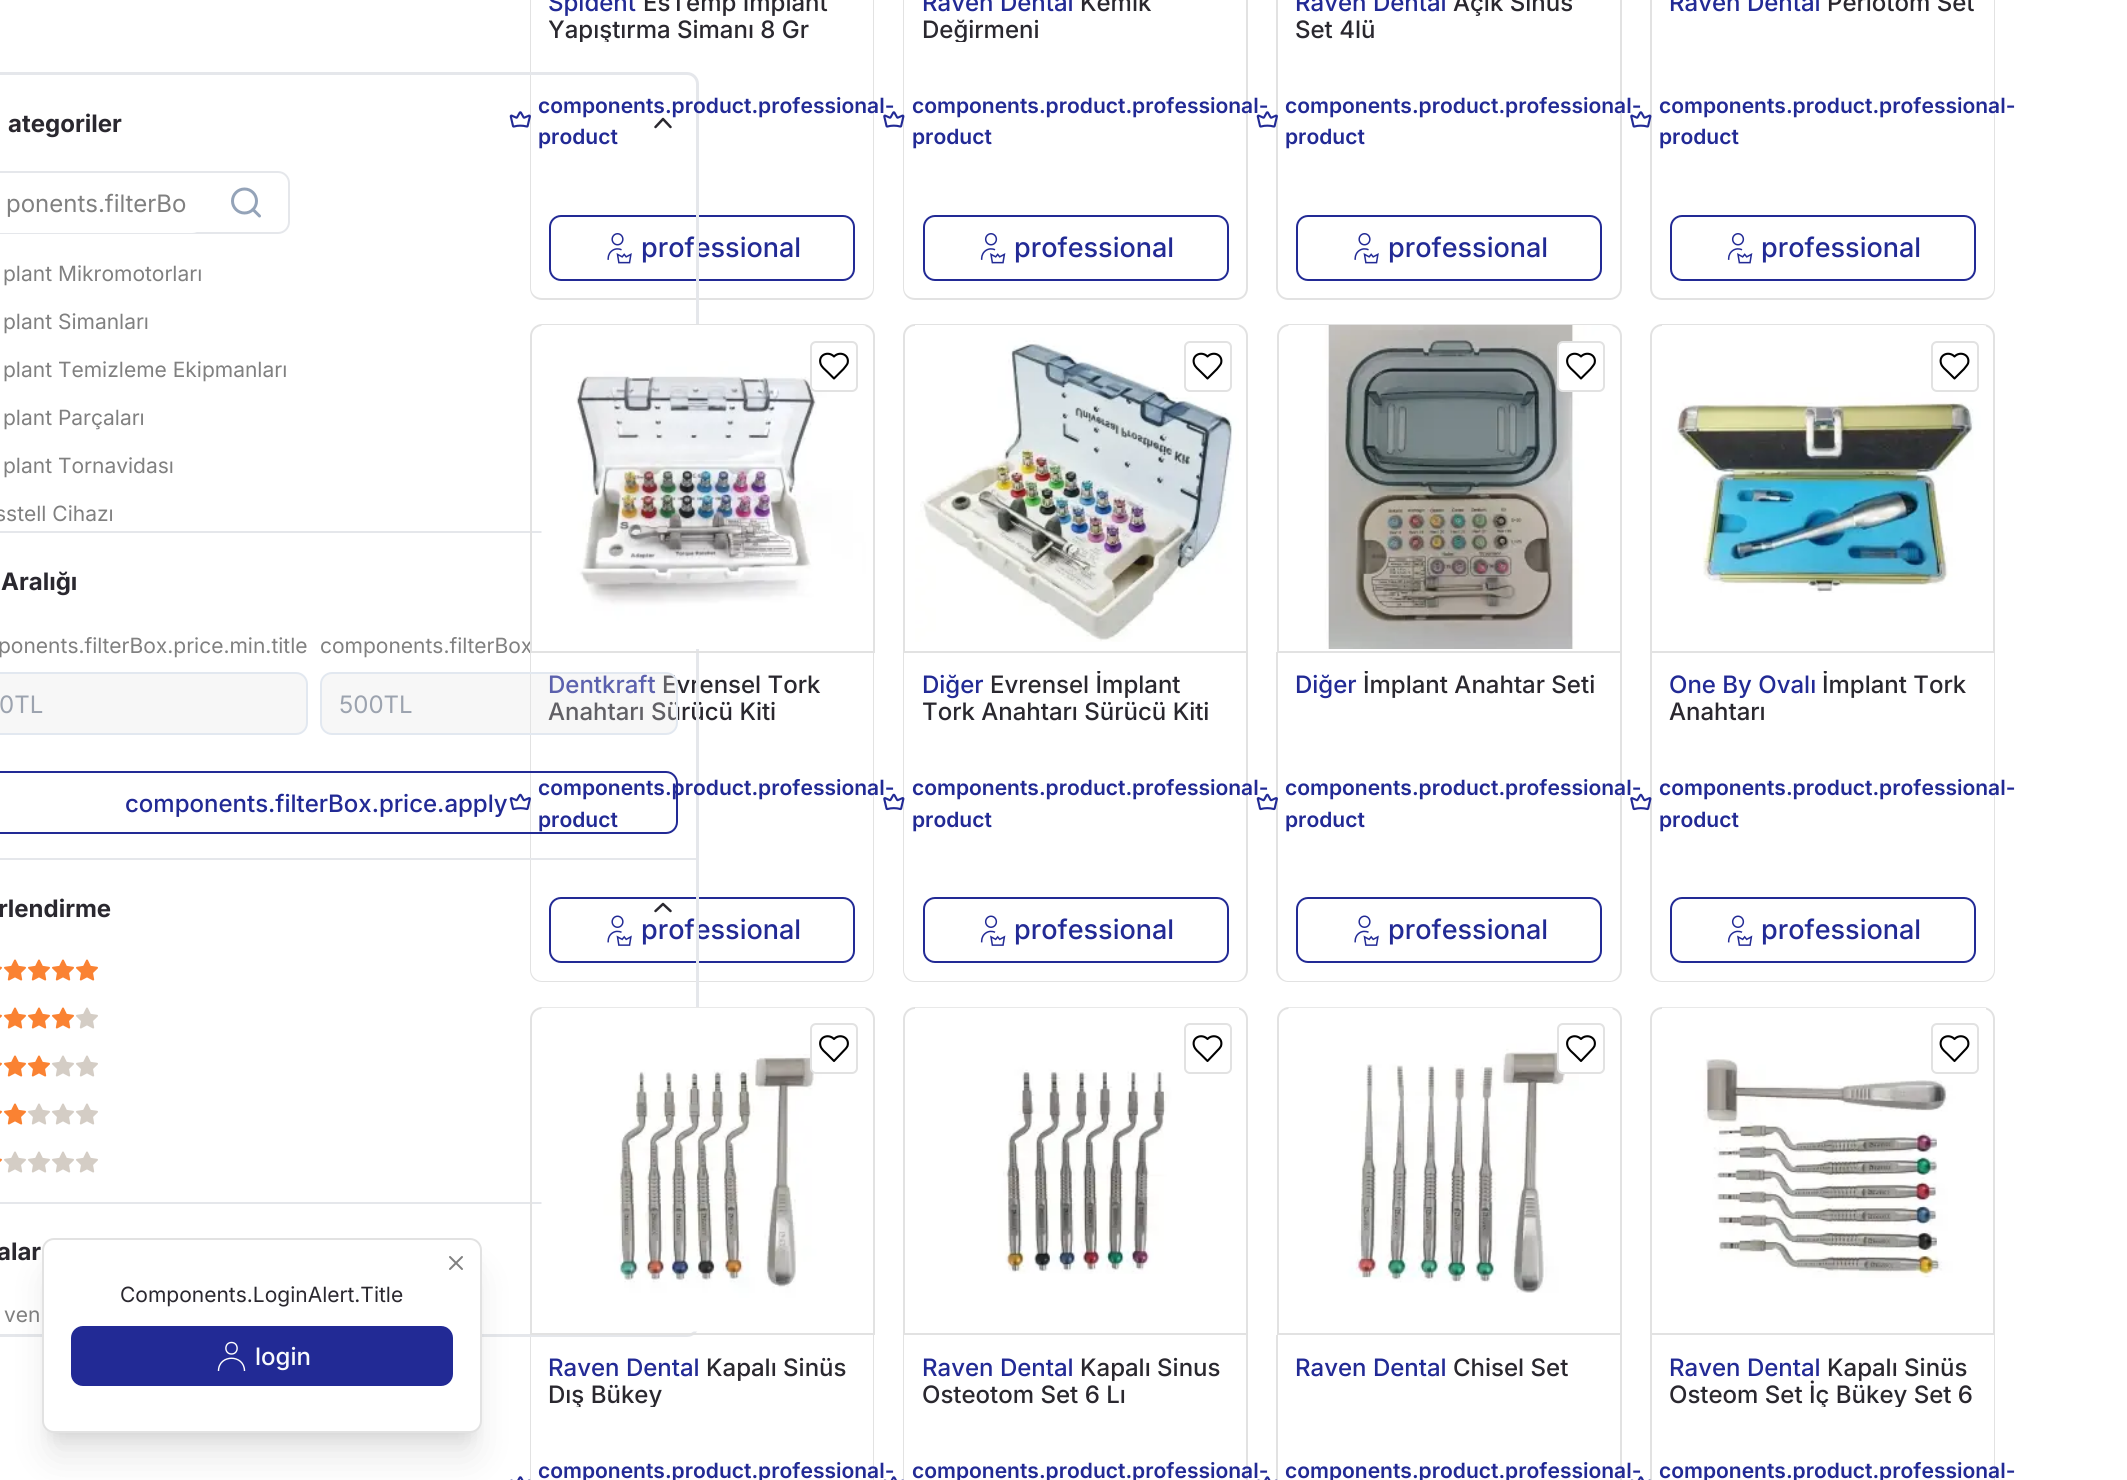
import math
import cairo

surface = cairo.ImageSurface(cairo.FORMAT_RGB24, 2127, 1480)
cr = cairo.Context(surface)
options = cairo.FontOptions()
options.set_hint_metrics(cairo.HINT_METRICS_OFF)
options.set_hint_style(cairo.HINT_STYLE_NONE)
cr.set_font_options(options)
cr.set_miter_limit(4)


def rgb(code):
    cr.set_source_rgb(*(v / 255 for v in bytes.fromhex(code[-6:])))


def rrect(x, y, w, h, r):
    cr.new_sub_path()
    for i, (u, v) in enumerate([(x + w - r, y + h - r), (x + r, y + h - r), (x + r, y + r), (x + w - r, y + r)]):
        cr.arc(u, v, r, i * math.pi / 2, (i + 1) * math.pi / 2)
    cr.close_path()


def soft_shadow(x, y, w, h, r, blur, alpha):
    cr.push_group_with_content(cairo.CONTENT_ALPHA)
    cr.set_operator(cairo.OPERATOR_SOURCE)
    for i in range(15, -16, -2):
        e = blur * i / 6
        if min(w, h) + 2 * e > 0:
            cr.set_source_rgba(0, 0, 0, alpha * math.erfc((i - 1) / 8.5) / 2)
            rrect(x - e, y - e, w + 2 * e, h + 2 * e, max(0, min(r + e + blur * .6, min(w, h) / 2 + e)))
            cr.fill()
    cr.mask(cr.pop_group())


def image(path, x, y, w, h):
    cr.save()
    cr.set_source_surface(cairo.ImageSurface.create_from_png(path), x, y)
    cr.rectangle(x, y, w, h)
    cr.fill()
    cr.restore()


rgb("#ffffff")
cr.paint()
rgb("#e2e2e2")
cr.set_fill_rule(cairo.FILL_RULE_EVEN_ODD)
cr.new_path()
cr.move_to(530, -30)
cr.line_to(874, -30)
cr.line_to(874, 288)
cr.curve_to(874, 295, 869, 300, 862, 300)
cr.line_to(542, 300)
cr.curve_to(535, 300, 530, 295, 530, 288)
cr.close_path()
cr.move_to(531, -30)
cr.line_to(873, -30)
cr.line_to(873, 288)
cr.curve_to(873, 294, 868, 298, 862, 298)
cr.line_to(542, 298)
cr.curve_to(536, 298, 531, 294, 531, 288)
cr.close_path()
cr.fill()
rrect(550, 216, 304, 64, 11)
rgb("#222a95")
cr.stroke()
image("img/5.png", 607, 233, 25, 31)
rgb("#e2e2e2")
cr.new_path()
cr.move_to(903, -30)
cr.line_to(1248, -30)
cr.line_to(1248, 288)
cr.curve_to(1248, 295, 1243, 300, 1236, 300)
cr.line_to(915, 300)
cr.curve_to(908, 300, 903, 295, 903, 288)
cr.close_path()
cr.move_to(904, -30)
cr.line_to(1246, -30)
cr.line_to(1246, 288)
cr.curve_to(1246, 294, 1242, 298, 1236, 298)
cr.line_to(915, 298)
cr.curve_to(909, 298, 904, 294, 904, 288)
cr.close_path()
cr.fill()
rrect(924, 216, 304, 64, 11)
rgb("#222a95")
cr.stroke()
image("img/7.png", 980, 233, 26, 31)
rgb("#e2e2e2")
cr.new_path()
cr.move_to(1276, -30)
cr.line_to(1622, -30)
cr.line_to(1622, 288)
cr.curve_to(1622, 295, 1616, 300, 1610, 300)
cr.line_to(1288, 300)
cr.curve_to(1282, 300, 1276, 295, 1276, 288)
cr.close_path()
cr.move_to(1278, -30)
cr.line_to(1620, -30)
cr.line_to(1620, 288)
cr.curve_to(1620, 294, 1615, 298, 1610, 298)
cr.line_to(1288, 298)
cr.curve_to(1283, 298, 1278, 294, 1278, 288)
cr.close_path()
cr.fill()
rrect(1297, 216, 304, 64, 11)
rgb("#222a95")
cr.stroke()
image("img/5.png", 1354, 233, 25, 31)
rgb("#e2e2e2")
cr.new_path()
cr.move_to(1650, -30)
cr.line_to(1995, -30)
cr.line_to(1995, 288)
cr.curve_to(1995, 295, 1990, 300, 1983, 300)
cr.line_to(1662, 300)
cr.curve_to(1655, 300, 1650, 295, 1650, 288)
cr.close_path()
cr.move_to(1652, -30)
cr.line_to(1994, -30)
cr.line_to(1994, 288)
cr.curve_to(1994, 294, 1989, 298, 1983, 298)
cr.line_to(1662, 298)
cr.curve_to(1656, 298, 1652, 294, 1652, 288)
cr.close_path()
cr.fill()
rrect(1671, 216, 304, 64, 11)
rgb("#222a95")
cr.stroke()
image("img/7.png", 1727, 233, 26, 31)
rgb("#e2e2e2")
cr.new_path()
cr.move_to(530, 652)
cr.line_to(874, 652)
cr.line_to(874, 970)
cr.curve_to(874, 977, 869, 982, 862, 982)
cr.line_to(542, 982)
cr.curve_to(535, 982, 530, 977, 530, 970)
cr.close_path()
cr.move_to(531, 652)
cr.line_to(873, 652)
cr.line_to(873, 970)
cr.curve_to(873, 976, 868, 981, 862, 981)
cr.line_to(542, 981)
cr.curve_to(536, 981, 531, 976, 531, 970)
cr.close_path()
cr.fill()
rrect(550, 898, 304, 64, 11)
rgb("#222a95")
cr.stroke()
image("img/12.png", 607, 915, 25, 31)
rgb("#e2e2e2")
cr.new_path()
cr.move_to(903, 652)
cr.line_to(1248, 652)
cr.line_to(1248, 970)
cr.curve_to(1248, 977, 1243, 982, 1236, 982)
cr.line_to(915, 982)
cr.curve_to(908, 982, 903, 977, 903, 970)
cr.close_path()
cr.move_to(904, 652)
cr.line_to(1246, 652)
cr.line_to(1246, 970)
cr.curve_to(1246, 976, 1242, 981, 1236, 981)
cr.line_to(915, 981)
cr.curve_to(909, 981, 904, 976, 904, 970)
cr.close_path()
cr.fill()
cr.new_path()
cr.move_to(915, 325)
cr.line_to(1236, 325)
cr.curve_to(1242, 325, 1247, 330, 1247, 336)
cr.line_to(1247, 652)
cr.line_to(904, 652)
cr.line_to(904, 336)
cr.curve_to(904, 330, 909, 325, 915, 325)
cr.close_path()
cr.stroke()
image("img/13.png", 915, 325, 324, 317)
rrect(1185, 342, 46, 49, 5)
cr.stroke()
cr.new_path()
cr.move_to(1217, 369)
cr.curve_to(1218.5, 367, 1220, 365.5, 1221, 363.5)
cr.curve_to(1223.5, 355, 1213.5, 350.5, 1207.5, 356.5)
cr.curve_to(1201.5, 350.5, 1191.5, 355, 1194, 363.5)
cr.curve_to(1195, 367, 1198.5, 369.5, 1201, 372)
cr.line_to(1207.5, 378.5)
cr.close_path()
rgb("#000000")
cr.set_line_width(2.1)
cr.set_line_cap(cairo.LINE_CAP_ROUND)
cr.set_line_join(cairo.LINE_JOIN_ROUND)
cr.stroke()
rrect(924, 898, 304, 64, 11)
rgb("#222a95")
cr.set_line_width(2)
cr.set_line_cap(cairo.LINE_CAP_BUTT)
cr.set_line_join(cairo.LINE_JOIN_MITER)
cr.stroke()
image("img/15.png", 980, 915, 26, 31)
rgb("#e2e2e2")
cr.new_path()
cr.move_to(1276, 652)
cr.line_to(1622, 652)
cr.line_to(1622, 970)
cr.curve_to(1622, 977, 1616, 982, 1610, 982)
cr.line_to(1288, 982)
cr.curve_to(1282, 982, 1276, 977, 1276, 970)
cr.close_path()
cr.move_to(1278, 652)
cr.line_to(1620, 652)
cr.line_to(1620, 970)
cr.curve_to(1620, 976, 1615, 981, 1610, 981)
cr.line_to(1288, 981)
cr.curve_to(1283, 981, 1278, 976, 1278, 970)
cr.close_path()
cr.fill()
cr.new_path()
cr.move_to(1289, 325)
cr.line_to(1610, 325)
cr.curve_to(1616, 325, 1621, 330, 1621, 336)
cr.line_to(1621, 652)
cr.line_to(1278, 652)
cr.line_to(1278, 336)
cr.curve_to(1278, 330, 1283, 325, 1289, 325)
cr.close_path()
cr.stroke()
image("img/16.png", 1288, 325, 325, 324)
rgb("#ffffff")
rrect(1558, 342, 46, 49, 5)
cr.fill_preserve()
rgb("#e2e2e2")
cr.stroke()
cr.new_path()
cr.move_to(1590.5, 369)
cr.curve_to(1592, 367, 1593.5, 365.5, 1594.5, 363.5)
cr.curve_to(1597, 355, 1587, 350.5, 1581, 356.5)
cr.curve_to(1575, 350.5, 1565, 355, 1567.5, 363.5)
cr.curve_to(1568.5, 367, 1572, 369.5, 1574.5, 372)
cr.line_to(1581, 378.5)
cr.close_path()
rgb("#000000")
cr.set_line_width(2.1)
cr.set_line_cap(cairo.LINE_CAP_ROUND)
cr.set_line_join(cairo.LINE_JOIN_ROUND)
cr.stroke()
rrect(1297, 898, 304, 64, 11)
rgb("#222a95")
cr.set_line_width(2)
cr.set_line_cap(cairo.LINE_CAP_BUTT)
cr.set_line_join(cairo.LINE_JOIN_MITER)
cr.stroke()
image("img/12.png", 1354, 915, 25, 31)
rgb("#e2e2e2")
cr.new_path()
cr.move_to(1650, 652)
cr.line_to(1995, 652)
cr.line_to(1995, 970)
cr.curve_to(1995, 977, 1990, 982, 1983, 982)
cr.line_to(1662, 982)
cr.curve_to(1655, 982, 1650, 977, 1650, 970)
cr.close_path()
cr.move_to(1652, 652)
cr.line_to(1994, 652)
cr.line_to(1994, 970)
cr.curve_to(1994, 976, 1989, 981, 1983, 981)
cr.line_to(1662, 981)
cr.curve_to(1656, 981, 1652, 976, 1652, 970)
cr.close_path()
cr.fill()
cr.new_path()
cr.move_to(1662, 325)
cr.line_to(1983, 325)
cr.curve_to(1989, 325, 1994, 330, 1994, 336)
cr.line_to(1994, 652)
cr.line_to(1651, 652)
cr.line_to(1651, 336)
cr.curve_to(1651, 330, 1656, 325, 1662, 325)
cr.close_path()
cr.stroke()
image("img/18.png", 1662, 325, 324, 268)
rrect(1932, 342, 46, 49, 5)
cr.stroke()
cr.new_path()
cr.move_to(1964, 369)
cr.curve_to(1965.5, 367, 1967, 365.5, 1968, 363.5)
cr.curve_to(1970.5, 355, 1960.5, 350.5, 1954.5, 356.5)
cr.curve_to(1948.5, 350.5, 1938.5, 355, 1941, 363.5)
cr.curve_to(1942, 367, 1945.5, 369.5, 1948, 372)
cr.line_to(1954.5, 378.5)
cr.close_path()
rgb("#000000")
cr.set_line_width(2.1)
cr.set_line_cap(cairo.LINE_CAP_ROUND)
cr.set_line_join(cairo.LINE_JOIN_ROUND)
cr.stroke()
rrect(1671, 898, 304, 64, 11)
rgb("#222a95")
cr.set_line_width(2)
cr.set_line_cap(cairo.LINE_CAP_BUTT)
cr.set_line_join(cairo.LINE_JOIN_MITER)
cr.stroke()
image("img/15.png", 1727, 915, 26, 31)
rgb("#e2e2e2")
cr.new_path()
cr.move_to(530, 1335)
cr.line_to(874, 1335)
cr.line_to(874, 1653)
cr.curve_to(874, 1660, 869, 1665, 862, 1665)
cr.line_to(542, 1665)
cr.curve_to(535, 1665, 530, 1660, 530, 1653)
cr.close_path()
cr.move_to(531, 1335)
cr.line_to(873, 1335)
cr.line_to(873, 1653)
cr.curve_to(873, 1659, 868, 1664, 862, 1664)
cr.line_to(542, 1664)
cr.curve_to(536, 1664, 531, 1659, 531, 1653)
cr.close_path()
cr.fill()
image("img/21.png", 510, 1476, 21, 4)
cr.new_path()
cr.move_to(915, 1008)
cr.line_to(1236, 1008)
cr.curve_to(1242, 1008, 1247, 1013, 1247, 1019)
cr.line_to(1247, 1334)
cr.line_to(904, 1334)
cr.line_to(904, 1019)
cr.curve_to(904, 1013, 909, 1008, 915, 1008)
cr.close_path()
cr.stroke()
image("img/22.png", 915, 1007, 324, 267)
rrect(1185, 1024, 46, 49, 5)
cr.stroke()
cr.new_path()
cr.move_to(1217, 1051)
cr.curve_to(1218.5, 1049.5, 1220, 1048, 1221, 1046)
cr.curve_to(1223.5, 1037.5, 1213.5, 1033, 1207.5, 1039)
cr.curve_to(1201.5, 1033, 1191.5, 1037.5, 1194, 1046)
cr.curve_to(1195, 1049.5, 1198.5, 1052, 1201, 1054.5)
cr.line_to(1207.5, 1061)
cr.close_path()
rgb("#000000")
cr.set_line_width(2.1)
cr.set_line_cap(cairo.LINE_CAP_ROUND)
cr.set_line_join(cairo.LINE_JOIN_ROUND)
cr.stroke()
rgb("#e2e2e2")
cr.new_path()
cr.move_to(903, 1335)
cr.line_to(1248, 1335)
cr.line_to(1248, 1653)
cr.curve_to(1248, 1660, 1243, 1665, 1236, 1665)
cr.line_to(915, 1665)
cr.curve_to(908, 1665, 903, 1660, 903, 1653)
cr.close_path()
cr.move_to(904, 1335)
cr.line_to(1246, 1335)
cr.line_to(1246, 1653)
cr.curve_to(1246, 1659, 1242, 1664, 1236, 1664)
cr.line_to(915, 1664)
cr.curve_to(909, 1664, 904, 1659, 904, 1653)
cr.close_path()
cr.fill()
cr.new_path()
cr.move_to(1289, 1008)
cr.line_to(1610, 1008)
cr.curve_to(1616, 1008, 1621, 1013, 1621, 1019)
cr.line_to(1621, 1334)
cr.line_to(1278, 1334)
cr.line_to(1278, 1019)
cr.curve_to(1278, 1013, 1283, 1008, 1289, 1008)
cr.close_path()
cr.set_line_width(2)
cr.set_line_cap(cairo.LINE_CAP_BUTT)
cr.set_line_join(cairo.LINE_JOIN_MITER)
cr.stroke()
image("img/24.png", 1288, 1007, 325, 286)
rgb("#ffffff")
rrect(1558, 1024, 46, 49, 5)
cr.fill_preserve()
rgb("#e2e2e2")
cr.stroke()
cr.new_path()
cr.move_to(1590.5, 1051)
cr.curve_to(1592, 1049.5, 1593.5, 1048, 1594.5, 1046)
cr.curve_to(1597, 1037.5, 1587, 1033, 1581, 1039)
cr.curve_to(1575, 1033, 1565, 1037.5, 1567.5, 1046)
cr.curve_to(1568.5, 1049.5, 1572, 1052, 1574.5, 1054.5)
cr.line_to(1581, 1061)
cr.close_path()
rgb("#000000")
cr.set_line_width(2.1)
cr.set_line_cap(cairo.LINE_CAP_ROUND)
cr.set_line_join(cairo.LINE_JOIN_ROUND)
cr.stroke()
rgb("#e2e2e2")
cr.new_path()
cr.move_to(1276, 1335)
cr.line_to(1622, 1335)
cr.line_to(1622, 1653)
cr.curve_to(1622, 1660, 1616, 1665, 1610, 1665)
cr.line_to(1288, 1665)
cr.curve_to(1282, 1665, 1276, 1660, 1276, 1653)
cr.close_path()
cr.move_to(1278, 1335)
cr.line_to(1620, 1335)
cr.line_to(1620, 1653)
cr.curve_to(1620, 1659, 1615, 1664, 1610, 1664)
cr.line_to(1288, 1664)
cr.curve_to(1283, 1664, 1278, 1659, 1278, 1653)
cr.close_path()
cr.fill()
cr.new_path()
cr.move_to(1662, 1008)
cr.line_to(1983, 1008)
cr.curve_to(1989, 1008, 1994, 1013, 1994, 1019)
cr.line_to(1994, 1334)
cr.line_to(1651, 1334)
cr.line_to(1651, 1019)
cr.curve_to(1651, 1013, 1656, 1008, 1662, 1008)
cr.close_path()
cr.set_line_width(2)
cr.set_line_cap(cairo.LINE_CAP_BUTT)
cr.set_line_join(cairo.LINE_JOIN_MITER)
cr.stroke()
image("img/26.png", 1662, 1007, 324, 271)
rrect(1932, 1024, 46, 49, 5)
cr.stroke()
cr.new_path()
cr.move_to(1964, 1051)
cr.curve_to(1965.5, 1049.5, 1967, 1048, 1968, 1046)
cr.curve_to(1970.5, 1037.5, 1960.5, 1033, 1954.5, 1039)
cr.curve_to(1948.5, 1033, 1938.5, 1037.5, 1941, 1046)
cr.curve_to(1942, 1049.5, 1945.5, 1052, 1948, 1054.5)
cr.line_to(1954.5, 1061)
cr.close_path()
rgb("#000000")
cr.set_line_width(2.1)
cr.set_line_cap(cairo.LINE_CAP_ROUND)
cr.set_line_join(cairo.LINE_JOIN_ROUND)
cr.stroke()
rgb("#e2e2e2")
cr.new_path()
cr.move_to(1650, 1335)
cr.line_to(1995, 1335)
cr.line_to(1995, 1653)
cr.curve_to(1995, 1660, 1990, 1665, 1983, 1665)
cr.line_to(1662, 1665)
cr.curve_to(1655, 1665, 1650, 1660, 1650, 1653)
cr.close_path()
cr.move_to(1652, 1335)
cr.line_to(1994, 1335)
cr.line_to(1994, 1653)
cr.curve_to(1994, 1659, 1989, 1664, 1983, 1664)
cr.line_to(1662, 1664)
cr.curve_to(1656, 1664, 1652, 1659, 1652, 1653)
cr.close_path()
cr.fill()
cr.select_font_face("Inter Medium")
cr.set_font_size(24)
rgb("#222a95")
cr.move_to(548, 11)
cr.show_text("Spident")
rgb("#2a282f")
cr.move_to(643, 11)
cr.show_text("EsTemp İmplant")
cr.save()
cr.set_fill_rule(cairo.FILL_RULE_WINDING)
cr.rectangle(549, 0, 306, 42)
cr.clip()
cr.move_to(548, 38)
cr.show_text("Yapıştırma Simanı 8 Gr")
cr.restore()
cr.set_font_size(27)
rgb("#222a95")
cr.move_to(641, 257)
cr.show_text("professional")
cr.set_font_size(24)
cr.move_to(922, 11)
cr.show_text("Raven Dental")
rgb("#2a282f")
cr.move_to(1080, 11)
cr.show_text("Kemik")
cr.save()
cr.set_fill_rule(cairo.FILL_RULE_WINDING)
cr.rectangle(923, 0, 306, 42)
cr.clip()
cr.move_to(922, 38)
cr.show_text("Değirmeni")
cr.restore()
cr.select_font_face("Inter SemiBold")
cr.set_font_size(21)
rgb("#222a95")
cr.move_to(912, 113)
cr.show_text("components.product.professional-")
cr.move_to(912, 144)
cr.show_text("product")
cr.select_font_face("Inter Medium")
cr.set_font_size(27)
cr.move_to(1014, 257)
cr.show_text("professional")
cr.set_font_size(24)
cr.move_to(1295, 11)
cr.show_text("Raven Dental")
rgb("#2a282f")
cr.move_to(1453, 11)
cr.show_text("Açık Sinüs")
cr.move_to(1295, 38)
cr.show_text("Set 4lü")
image("img/8.png", 1256, 111, 22, 17)
cr.select_font_face("Inter SemiBold")
cr.set_font_size(21)
rgb("#222a95")
cr.move_to(1285, 113)
cr.show_text("components.product.professional-")
cr.move_to(1285, 144)
cr.show_text("product")
cr.select_font_face("Inter Medium")
cr.set_font_size(27)
cr.move_to(1388, 257)
cr.show_text("professional")
cr.set_font_size(24)
cr.move_to(1669, 11)
cr.show_text("Raven Dental")
rgb("#2a282f")
cr.move_to(1827, 11)
cr.show_text("Periotom Set")
image("img/9.png", 1630, 111, 22, 17)
cr.select_font_face("Inter SemiBold")
cr.set_font_size(21)
rgb("#222a95")
cr.move_to(1659, 113)
cr.show_text("components.product.professional-")
cr.move_to(1659, 144)
cr.show_text("product")
cr.select_font_face("Inter Medium")
cr.set_font_size(27)
cr.move_to(1761, 257)
cr.show_text("professional")
cr.set_font_size(24)
cr.move_to(548, 693)
cr.show_text("Dentkraft")
rgb("#2a282f")
cr.move_to(662, 693)
cr.show_text("Evrensel Tork")
cr.move_to(548, 720)
cr.show_text("Anahtarı Sürücü Kiti")
cr.set_font_size(27)
rgb("#222a95")
cr.move_to(641, 939)
cr.show_text("professional")
rrect(-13.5, 73.5, 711, 1262, 10.5)
rgb("#e5e7eb")
cr.set_line_width(3)
cr.set_line_cap(cairo.LINE_CAP_BUTT)
cr.set_line_join(cairo.LINE_JOIN_MITER)
cr.stroke()
cr.select_font_face("Inter")
cr.set_font_size(21)
rgb("#808080")
cr.move_to(320, 653)
cr.show_text("components.filterBox")
rgb("#e5e7eb")
cr.rectangle(0, 531, 542, 2)
cr.fill()
cr.new_path()
cr.move_to(542, 325)
cr.line_to(863, 325)
cr.curve_to(869, 325, 874, 330, 874, 336)
cr.line_to(874, 652)
cr.line_to(531, 652)
cr.line_to(531, 336)
cr.curve_to(531, 330, 536, 325, 542, 325)
cr.close_path()
rgb("#e2e2e2")
cr.set_line_width(2)
cr.stroke()
image("img/10.png", 541, 325, 325, 324)
rgb("#ffffff")
rrect(811, 342, 46, 49, 5)
cr.fill_preserve()
rgb("#e2e2e2")
cr.stroke()
cr.new_path()
cr.move_to(843.5, 369)
cr.curve_to(845, 367, 846.5, 365.5, 847.5, 363.5)
cr.curve_to(850, 355, 840, 350.5, 834, 356.5)
cr.curve_to(828, 350.5, 818, 355, 820.5, 363.5)
cr.curve_to(821.5, 367, 825, 369.5, 827.5, 372)
cr.line_to(834, 378.5)
cr.close_path()
rgb("#000000")
cr.set_line_width(2.1)
cr.set_line_cap(cairo.LINE_CAP_ROUND)
cr.set_line_join(cairo.LINE_JOIN_ROUND)
cr.stroke()
rrect(-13, 772, 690, 61, 11)
rgb("#222a95")
cr.set_line_width(2)
cr.set_line_cap(cairo.LINE_CAP_BUTT)
cr.set_line_join(cairo.LINE_JOIN_MITER)
cr.stroke()
image("img/11.png", 509, 793, 22, 18)
cr.select_font_face("Inter SemiBold")
cr.move_to(538, 827)
cr.show_text("product")
cr.move_to(538, 795)
cr.show_text("components.product.professional-")
cr.new_path()
cr.move_to(670.5, 127)
cr.line_to(663, 119)
cr.line_to(655.5, 127)
rgb("#2a282f")
cr.set_line_width(2.5)
cr.set_line_cap(cairo.LINE_CAP_ROUND)
cr.set_line_join(cairo.LINE_JOIN_ROUND)
cr.stroke()
rgb("#222a95")
cr.move_to(538, 113)
cr.show_text("components.product.professional-")
image("img/6.png", 883, 111, 22, 17)
image("img/4.png", 509, 111, 22, 17)
cr.move_to(538, 144)
cr.show_text("product")
cr.new_path()
cr.move_to(670.5, 911)
cr.line_to(663, 904)
cr.line_to(655.5, 911)
rgb("#2a282f")
cr.stroke()
cr.select_font_face("Inter")
rgb("#808080")
cr.move_to(4, 1322)
cr.show_text("ven")
cr.select_font_face("Inter", cairo.FONT_SLANT_NORMAL, cairo.FONT_WEIGHT_BOLD)
cr.set_font_size(24)
rgb("#2a282f")
cr.move_to(-3, 1260)
cr.show_text("alar")
image("img/3.png", 76, 1151, 22, 22)
image("img/3.png", 52, 1151, 22, 22)
image("img/3.png", 28, 1151, 22, 22)
image("img/3.png", 4, 1151, 22, 22)
image("img/1.png", 0, 1158, 2, 4)
image("img/3.png", 76, 1103, 22, 22)
image("img/3.png", 52, 1103, 22, 22)
image("img/3.png", 28, 1103, 22, 22)
image("img/2.png", 4, 1103, 22, 22)
image("img/1.png", 0, 1110, 2, 4)
image("img/3.png", 76, 1055, 22, 22)
image("img/3.png", 52, 1055, 22, 22)
image("img/2.png", 28, 1055, 22, 22)
image("img/2.png", 4, 1055, 22, 22)
image("img/1.png", 0, 1062, 2, 4)
image("img/3.png", 76, 1007, 22, 22)
image("img/2.png", 52, 1007, 22, 22)
image("img/2.png", 28, 1007, 22, 22)
image("img/2.png", 4, 1007, 22, 22)
image("img/1.png", 0, 1014, 2, 4)
image("img/2.png", 76, 959, 22, 22)
image("img/2.png", 52, 959, 22, 22)
image("img/2.png", 28, 959, 22, 22)
image("img/2.png", 4, 959, 22, 22)
image("img/1.png", 0, 966, 2, 4)
cr.select_font_face("Inter Medium")
rgb("#222a95")
cr.move_to(125, 812)
cr.show_text("components.filterBox.price.apply")
cr.set_source_rgba(0.89, 0.89, 0.89, 0.3)
rrect(321, 673, 356, 61, 11)
cr.fill_preserve()
rgb("#e2e8f0")
cr.set_line_width(2)
cr.set_line_cap(cairo.LINE_CAP_BUTT)
cr.set_line_join(cairo.LINE_JOIN_MITER)
cr.stroke()
cr.select_font_face("Inter")
rgb("#9ca3af")
cr.move_to(339, 713)
cr.show_text("500TL")
rgb("#f7f7f7")
rrect(-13, 673, 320, 61, 11)
cr.fill_preserve()
rgb("#e2e8f0")
cr.stroke()
rgb("#9ca3af")
cr.move_to(-1, 713)
cr.show_text("0TL")
cr.set_font_size(21)
rgb("#808080")
cr.move_to(-2, 653)
cr.show_text("ponents.filterBox.price.min.title")
rrect(-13, 172, 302, 61, 11)
rgb("#e5e7eb")
cr.stroke()
cr.arc(244.5, 201, 12, 0, 2 * math.pi)
rgb("#94a3b8")
cr.set_line_width(3)
cr.stroke()
cr.new_path()
cr.move_to(259.5, 216)
cr.line_to(253, 209.5)
cr.set_line_cap(cairo.LINE_CAP_ROUND)
cr.set_line_join(cairo.LINE_JOIN_ROUND)
cr.stroke()
rgb("#ffffff")
rrect(-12, 173, 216, 60, 12)
cr.fill()
cr.set_font_size(24)
rgb("#808080")
cr.move_to(6, 212)
cr.show_text("ponents.filterBo")
cr.set_font_size(21)
for x, y, s in [
    (-5, 521, "sstell Cihazı"),
    (3, 473, "plant Tornavidası"),
    (3, 425, "plant Parçaları"),
    (3, 377, "plant Temizleme Ekipmanları"),
    (3, 329, "plant Simanları"),
    (3, 281, "plant Mikromotorları"),
]:
    cr.move_to(x, y)
    cr.show_text(s)
cr.select_font_face("Inter", cairo.FONT_SLANT_NORMAL, cairo.FONT_WEIGHT_BOLD)
cr.set_font_size(24)
rgb("#2a282f")
for x, y, s in [
    (8, 132, "ategoriler"),
    (-2, 917, "rlendirme"),
    (1, 590, "Aralığı"),
]:
    cr.move_to(x, y)
    cr.show_text(s)
rgb("#e5e7eb")
cr.rectangle(0, 1202, 542, 2)
cr.fill()
cr.rectangle(0, 858, 696, 2)
cr.fill()
cr.select_font_face("Inter Medium")
rgb("#222a95")
cr.move_to(922, 693)
cr.show_text("Diğer")
cr.save()
cr.set_fill_rule(cairo.FILL_RULE_WINDING)
cr.rectangle(923, 671, 306, 54)
cr.clip()
rgb("#2a282f")
cr.move_to(990, 693)
cr.show_text("Evrensel İmplant")
cr.move_to(922, 720)
cr.show_text("Tork Anahtarı Sürücü Kiti")
cr.restore()
image("img/14.png", 883, 793, 22, 18)
cr.select_font_face("Inter SemiBold")
cr.set_font_size(21)
cr.move_to(912, 795)
cr.show_text("components.product.professional-")
cr.move_to(912, 827)
cr.show_text("product")
cr.select_font_face("Inter Medium")
cr.set_font_size(27)
cr.move_to(1014, 939)
cr.show_text("professional")
cr.set_font_size(24)
cr.move_to(1295, 693)
cr.show_text("Diğer")
cr.save()
cr.set_fill_rule(cairo.FILL_RULE_WINDING)
cr.rectangle(1296, 671, 306, 54)
cr.clip()
rgb("#2a282f")
cr.move_to(1363, 693)
cr.show_text("İmplant Anahtar Seti")
cr.restore()
image("img/17.png", 1256, 793, 22, 18)
cr.select_font_face("Inter SemiBold")
cr.set_font_size(21)
cr.move_to(1285, 795)
cr.show_text("components.product.professional-")
cr.move_to(1285, 827)
cr.show_text("product")
cr.select_font_face("Inter Medium")
cr.set_font_size(27)
cr.move_to(1388, 939)
cr.show_text("professional")
cr.set_font_size(24)
cr.move_to(1669, 693)
cr.show_text("One By Ovalı")
cr.save()
cr.set_fill_rule(cairo.FILL_RULE_WINDING)
cr.rectangle(1670, 671, 306, 54)
cr.clip()
rgb("#2a282f")
cr.move_to(1822, 693)
cr.show_text("İmplant Tork")
cr.restore()
rgb("#2a282f")
cr.move_to(1669, 720)
cr.show_text("Anahtarı")
image("img/19.png", 1630, 793, 22, 18)
cr.select_font_face("Inter SemiBold")
cr.set_font_size(21)
rgb("#222a95")
cr.move_to(1659, 795)
cr.show_text("components.product.professional-")
cr.move_to(1659, 827)
cr.show_text("product")
cr.select_font_face("Inter Medium")
cr.set_font_size(27)
cr.move_to(1761, 939)
cr.show_text("professional")
cr.new_path()
cr.move_to(542, 1008)
cr.line_to(863, 1008)
cr.curve_to(869, 1008, 874, 1013, 874, 1019)
cr.line_to(874, 1334)
cr.line_to(531, 1334)
cr.line_to(531, 1019)
cr.curve_to(531, 1013, 536, 1008, 542, 1008)
cr.close_path()
rgb("#e2e2e2")
cr.set_line_width(2)
cr.set_line_cap(cairo.LINE_CAP_BUTT)
cr.set_line_join(cairo.LINE_JOIN_MITER)
cr.stroke()
image("img/20.png", 541, 1007, 325, 325)
rgb("#ffffff")
rrect(811, 1024, 46, 49, 5)
cr.fill_preserve()
rgb("#e2e2e2")
cr.stroke()
cr.new_path()
cr.move_to(843.5, 1051)
cr.curve_to(845, 1049.5, 846.5, 1048, 847.5, 1046)
cr.curve_to(850, 1037.5, 840, 1033, 834, 1039)
cr.curve_to(828, 1033, 818, 1037.5, 820.5, 1046)
cr.curve_to(821.5, 1049.5, 825, 1052, 827.5, 1054.5)
cr.line_to(834, 1061)
cr.close_path()
rgb("#000000")
cr.set_line_width(2.1)
cr.set_line_cap(cairo.LINE_CAP_ROUND)
cr.set_line_join(cairo.LINE_JOIN_ROUND)
cr.stroke()
cr.set_font_size(24)
rgb("#222a95")
cr.move_to(548, 1376)
cr.show_text("Raven Dental")
rgb("#2a282f")
cr.move_to(706, 1376)
cr.show_text("Kapalı Sinüs")
cr.save()
cr.set_fill_rule(cairo.FILL_RULE_WINDING)
cr.rectangle(549, 1353, 306, 54)
cr.clip()
cr.move_to(548, 1403)
cr.show_text("Dış Bükey")
cr.restore()
cr.select_font_face("Inter SemiBold")
cr.set_font_size(21)
rgb("#222a95")
cr.move_to(538, 1478)
cr.show_text("components.product.professional-")
cr.select_font_face("Inter Medium")
cr.set_font_size(24)
cr.move_to(922, 1376)
cr.show_text("Raven Dental")
rgb("#2a282f")
cr.move_to(1080, 1376)
cr.show_text("Kapalı Sinus")
cr.move_to(922, 1403)
cr.show_text("Osteotom Set 6 Lı")
image("img/23.png", 883, 1476, 21, 4)
cr.select_font_face("Inter SemiBold")
cr.set_font_size(21)
rgb("#222a95")
cr.move_to(912, 1478)
cr.show_text("components.product.professional-")
cr.select_font_face("Inter Medium")
cr.set_font_size(24)
cr.move_to(1295, 1376)
cr.show_text("Raven Dental")
rgb("#2a282f")
cr.move_to(1453, 1376)
cr.show_text("Chisel Set")
image("img/25.png", 1257, 1476, 21, 4)
cr.select_font_face("Inter SemiBold")
cr.set_font_size(21)
rgb("#222a95")
cr.move_to(1285, 1478)
cr.show_text("components.product.professional-")
cr.select_font_face("Inter Medium")
cr.set_font_size(24)
cr.move_to(1669, 1376)
cr.show_text("Raven Dental")
rgb("#2a282f")
cr.move_to(1827, 1376)
cr.show_text("Kapalı Sinüs")
cr.save()
cr.set_fill_rule(cairo.FILL_RULE_WINDING)
cr.rectangle(1670, 1353, 306, 54)
cr.clip()
cr.move_to(1669, 1403)
cr.show_text("Osteom Set İç Bükey Set 6")
cr.restore()
image("img/23.png", 1630, 1476, 21, 4)
cr.select_font_face("Inter SemiBold")
cr.set_font_size(21)
rgb("#222a95")
cr.move_to(1659, 1478)
cr.show_text("components.product.professional-")
rgb("#000000")
soft_shadow(51, 1259, 422, 177, 3, 7.5, 0.1)
soft_shadow(50, 1275, 424, 180, 5, 19, 0.1)
rgb("#ffffff")
rrect(43, 1239, 438, 193, 11)
cr.fill_preserve()
rgb("#e2e2e2")
cr.set_line_width(2)
cr.set_line_cap(cairo.LINE_CAP_BUTT)
cr.set_line_join(cairo.LINE_JOIN_MITER)
cr.stroke()
cr.new_path()
cr.move_to(462, 1257)
cr.line_to(450, 1269)
cr.move_to(450, 1257)
cr.line_to(462, 1269)
rgb("#808080")
cr.set_line_cap(cairo.LINE_CAP_ROUND)
cr.set_line_join(cairo.LINE_JOIN_ROUND)
cr.stroke()
cr.select_font_face("Inter")
rgb("#2a282f")
cr.move_to(120, 1302)
cr.show_text("Components.LoginAlert.Title")
rgb("#222a95")
rrect(71, 1326, 382, 60, 12)
cr.fill()
cr.new_path()
cr.move_to(231.5, 1354)
cr.curve_to(239, 1354, 239, 1342.5, 231.5, 1342.5)
cr.curve_to(224, 1342.5, 224, 1354, 231.5, 1354)
cr.move_to(244.5, 1371)
cr.curve_to(244.5, 1354, 218.5, 1354, 218.5, 1371)
rgb("#ffffff")
cr.set_line_width(1.4)
cr.set_line_cap(cairo.LINE_CAP_BUTT)
cr.set_line_join(cairo.LINE_JOIN_MITER)
cr.stroke()
cr.select_font_face("Inter Medium")
cr.set_font_size(24)
rgb("#f8fafc")
cr.move_to(255, 1365)
cr.show_text("login")
surface.write_to_png("page.png")
